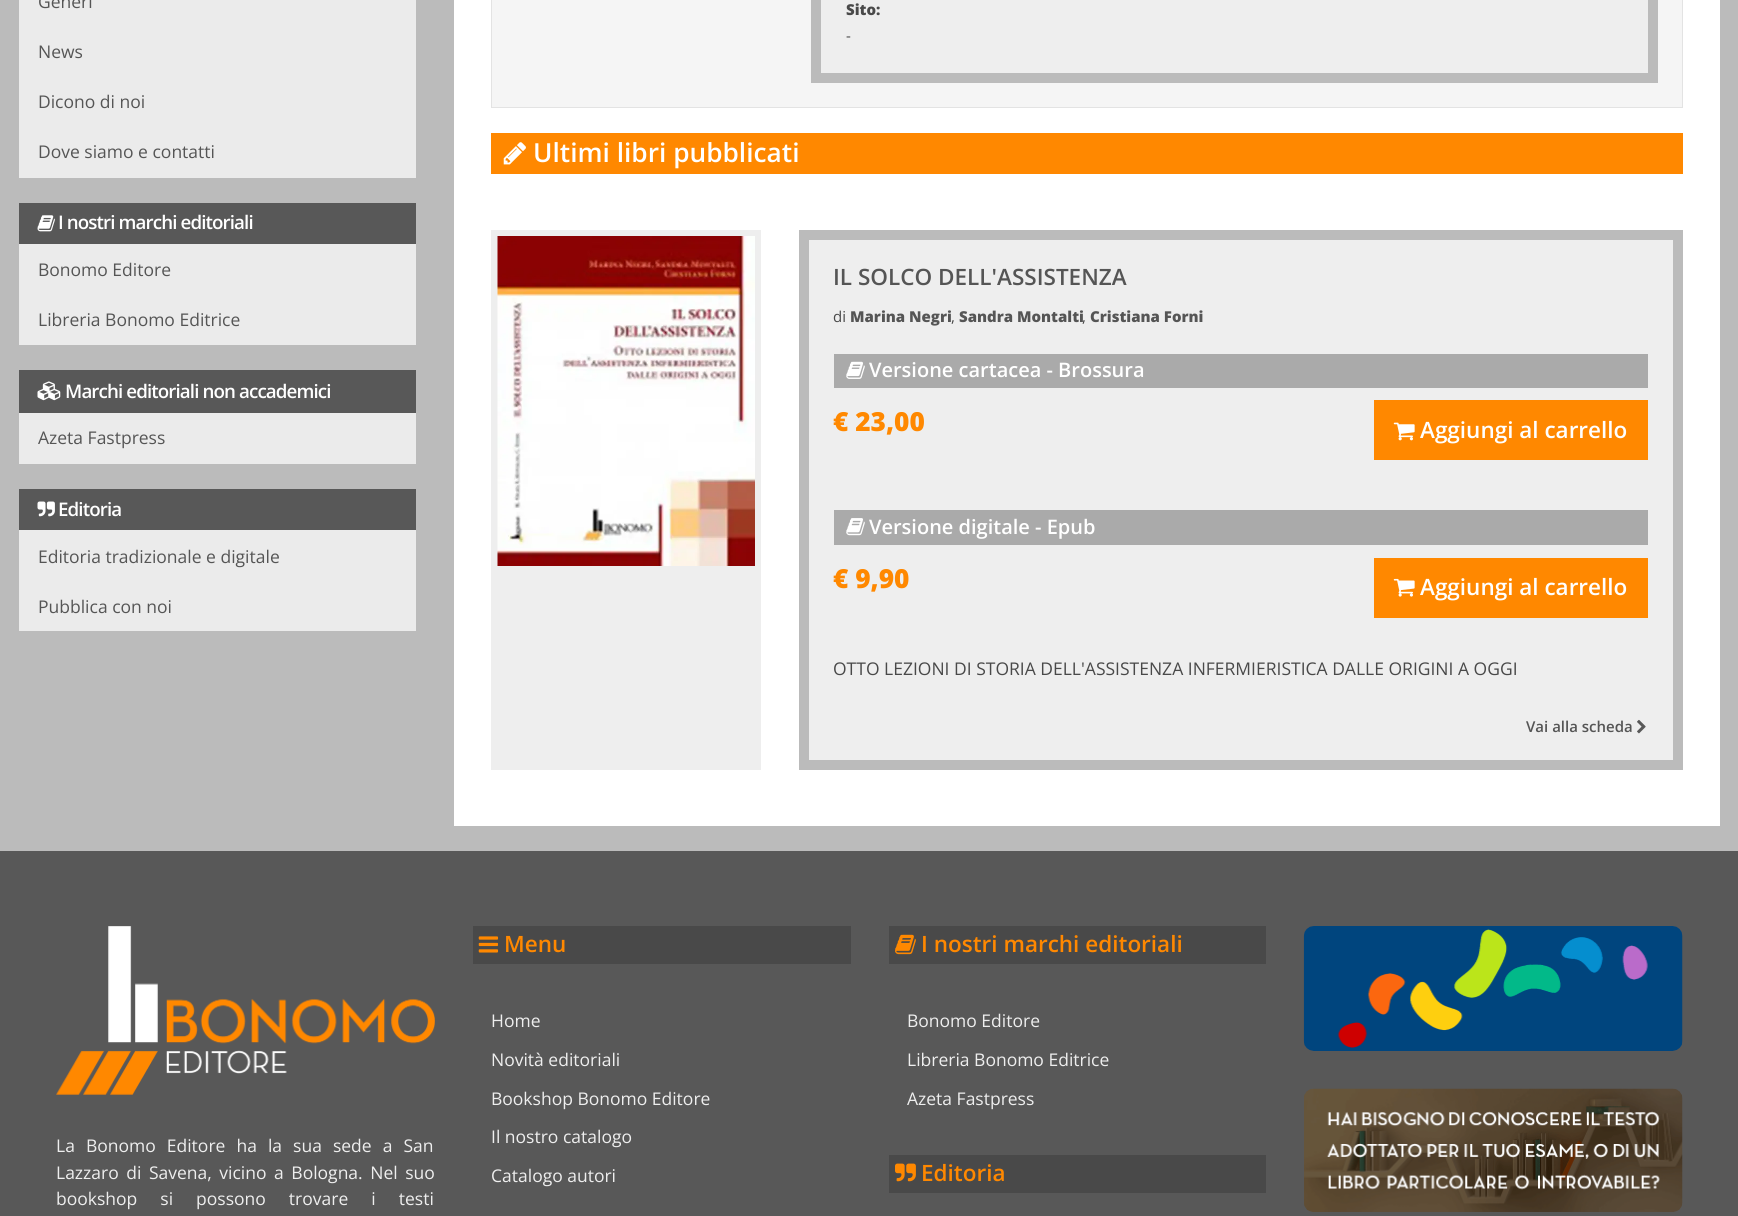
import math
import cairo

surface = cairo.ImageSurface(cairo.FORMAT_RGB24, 1738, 1216)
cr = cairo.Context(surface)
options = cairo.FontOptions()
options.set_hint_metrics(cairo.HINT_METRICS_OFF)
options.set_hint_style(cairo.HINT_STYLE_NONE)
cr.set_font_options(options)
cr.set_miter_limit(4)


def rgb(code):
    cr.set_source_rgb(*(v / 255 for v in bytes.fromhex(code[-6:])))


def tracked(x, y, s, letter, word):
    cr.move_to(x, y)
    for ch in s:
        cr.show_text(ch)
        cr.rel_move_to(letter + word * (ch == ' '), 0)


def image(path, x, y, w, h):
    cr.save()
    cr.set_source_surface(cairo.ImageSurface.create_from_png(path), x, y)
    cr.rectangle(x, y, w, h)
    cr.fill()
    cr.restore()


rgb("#bbbbbb")
cr.paint()
rgb("#ebebeb")
cr.rectangle(19, 0, 397, 178)
cr.fill()
rgb("#585858")
cr.rectangle(19, 203, 397, 41)
cr.fill()
image("img/1.png", 37, 215, 18, 17)
rgb("#ebebeb")
cr.rectangle(19, 244, 397, 101)
cr.fill()
rgb("#585858")
cr.rectangle(19, 370, 397, 43)
cr.fill()
image("img/2.png", 37, 381, 24, 20)
rgb("#ebebeb")
cr.rectangle(19, 413, 397, 51)
cr.fill()
rgb("#585858")
cr.rectangle(19, 489, 397, 41)
cr.fill()
image("img/3.png", 37, 501, 18, 16)
rgb("#ebebeb")
cr.rectangle(19, 530, 397, 101)
cr.fill()
rgb("#ffffff")
cr.rectangle(454, 0, 1266, 826)
cr.fill()
rgb("#f5f5f5")
cr.rectangle(491.5, -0.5, 1191, 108)
cr.fill_preserve()
rgb("#e3e3e3")
cr.set_line_width(1)
cr.stroke()
rgb("#eeeeee")
cr.rectangle(816, -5, 837, 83)
cr.fill_preserve()
rgb("#bbbbbb")
cr.set_line_width(10)
cr.stroke()
rgb("#ff8800")
cr.rectangle(491, 133, 1192, 41)
cr.fill()
image("img/4.png", 503, 142, 23, 23)
rgb("#eeeeee")
cr.rectangle(491, 230, 270, 540)
cr.fill()
image("img/5.png", 497, 236, 258, 330)
cr.rectangle(804, 235, 874, 530)
cr.fill_preserve()
rgb("#bbbbbb")
cr.stroke()
rgb("#aaaaaa")
cr.rectangle(834, 354, 814, 34)
cr.fill()
image("img/6.png", 846, 361, 19, 18)
rgb("#ff8800")
cr.rectangle(1374, 400, 274, 60)
cr.fill()
image("img/7.png", 1393, 422, 22, 19)
rgb("#aaaaaa")
cr.rectangle(834, 510, 814, 35)
cr.fill()
image("img/8.png", 846, 518, 19, 18)
rgb("#ff8800")
cr.rectangle(1374, 558, 274, 60)
cr.fill()
image("img/9.png", 1393, 578, 22, 19)
image("img/10.png", 1637, 719, 9, 15)
rgb("#585858")
cr.rectangle(0, 851, 1738, 365)
cr.fill()
image("img/11.png", 56, 926, 379, 169)
rgb("#494949")
cr.rectangle(473, 926, 378, 38)
cr.fill()
image("img/12.png", 478, 936, 21, 17)
cr.rectangle(889, 926, 377, 38)
cr.fill()
image("img/13.png", 895, 934, 21, 21)
cr.rectangle(889, 1155, 377, 38)
cr.fill()
image("img/14.png", 895, 1163, 21, 19)
image("img/15.png", 1303, 926, 380, 125)
image("img/16.png", 1304, 1088, 379, 124)
cr.select_font_face("Open Sans")
cr.set_font_size(17.5)
rgb("#555555")
for x, y, s in [
    (38, 8, "Generi"),
    (38, 58, "News"),
    (38, 108, "Dicono di noi"),
    (38, 158, "Dove siamo e contatti"),
]:
    cr.move_to(x, y)
    cr.show_text(s)
cr.select_font_face("Open Sans SemiBold")
cr.set_font_size(18.75)
rgb("#ffffff")
tracked(58, 229, "I nostri marchi editoriali", -0.9, 0)
cr.select_font_face("Open Sans")
cr.set_font_size(17.5)
rgb("#555555")
cr.move_to(38, 276)
cr.show_text("Bonomo Editore")
cr.move_to(38, 326)
cr.show_text("Libreria Bonomo Editrice")
cr.select_font_face("Open Sans SemiBold")
cr.set_font_size(18.75)
rgb("#ffffff")
tracked(65, 398, "Marchi editoriali non accademici", -0.9, 0)
cr.select_font_face("Open Sans")
cr.set_font_size(17.5)
rgb("#555555")
cr.move_to(38, 444)
cr.show_text("Azeta Fastpress")
cr.select_font_face("Open Sans SemiBold")
cr.set_font_size(18.75)
rgb("#ffffff")
tracked(58, 516, "Editoria", -0.9, 0)
cr.select_font_face("Open Sans")
cr.set_font_size(17.5)
rgb("#555555")
cr.move_to(38, 563)
cr.show_text("Editoria tradizionale e digitale")
cr.move_to(38, 613)
cr.show_text("Pubblica con noi")
cr.select_font_face("Open Sans ExtraBold")
cr.set_font_size(15)
rgb("#494949")
cr.move_to(846, 15)
cr.show_text("Sito:")
cr.select_font_face("Open Sans")
cr.move_to(846, 41)
cr.show_text("-")
cr.select_font_face("Open Sans SemiBold")
cr.set_font_size(26.25)
rgb("#ffffff")
cr.move_to(533, 162)
cr.show_text("Ultimi libri pubblicati")
cr.set_font_size(22.5)
rgb("#555555")
cr.move_to(833, 285)
cr.show_text("IL SOLCO DELL'ASSISTENZA")
cr.select_font_face("Open Sans")
cr.set_font_size(15)
rgb("#494949")
cr.move_to(833, 322)
cr.show_text("di")
cr.select_font_face("Open Sans ExtraBold")
rgb("#555555")
cr.move_to(850, 322)
cr.show_text("Marina Negri")
cr.select_font_face("Open Sans")
rgb("#494949")
cr.move_to(951, 322)
cr.show_text(",")
cr.select_font_face("Open Sans ExtraBold")
rgb("#555555")
cr.move_to(959, 322)
cr.show_text("Sandra Montalti")
cr.select_font_face("Open Sans")
rgb("#494949")
cr.move_to(1082, 322)
cr.show_text(",")
cr.select_font_face("Open Sans ExtraBold")
rgb("#555555")
cr.move_to(1090, 322)
cr.show_text("Cristiana Forni")
cr.select_font_face("Open Sans SemiBold")
cr.set_font_size(20)
rgb("#ffffff")
cr.move_to(869, 377)
cr.show_text("Versione cartacea - Brossura")
cr.select_font_face("Open Sans ExtraBold")
cr.set_font_size(26.25)
rgb("#ff8800")
cr.move_to(833, 431)
cr.show_text("€ 23,00")
cr.select_font_face("Open Sans SemiBold")
cr.set_font_size(22.5)
rgb("#ffffff")
cr.move_to(1420, 438)
cr.show_text("Aggiungi al carrello")
cr.set_font_size(20)
cr.move_to(869, 534)
cr.show_text("Versione digitale - Epub")
cr.select_font_face("Open Sans ExtraBold")
cr.set_font_size(26.25)
rgb("#ff8800")
cr.move_to(833, 588)
cr.show_text("€ 9,90")
cr.select_font_face("Open Sans SemiBold")
cr.set_font_size(22.5)
rgb("#ffffff")
cr.move_to(1420, 595)
cr.show_text("Aggiungi al carrello")
cr.select_font_face("Open Sans")
cr.set_font_size(17.5)
rgb("#494949")
cr.move_to(833, 675)
cr.show_text("OTTO LEZIONI DI STORIA DELL'ASSISTENZA INFERMIERISTICA DALLE ORIGINI A OGGI")
cr.select_font_face("Open Sans SemiBold")
cr.set_font_size(15)
rgb("#555555")
cr.move_to(1526, 732)
cr.show_text("Vai alla scheda")
cr.select_font_face("Open Sans")
cr.set_font_size(17.5)
rgb("#eeeeee")
tracked(56, 1152, "La Bonomo Editore ha la sua sede a San", 0, 6.5)
tracked(56, 1179, "Lazzaro di Savena, vicino a Bologna. Nel suo", 0, 3)
tracked(56, 1205, "bookshop si possono trovare i testi", 0, 18.5)
cr.select_font_face("Open Sans SemiBold")
cr.set_font_size(22.5)
rgb("#ff8800")
cr.move_to(504, 952)
cr.show_text("Menu")
cr.select_font_face("Open Sans")
cr.set_font_size(17.5)
rgb("#eeeeee")
for x, y, s in [
    (491, 1027, "Home"),
    (491, 1066, "Novità editoriali"),
    (491, 1105, "Bookshop Bonomo Editore"),
    (491, 1143, "Il nostro catalogo"),
    (491, 1182, "Catalogo autori"),
]:
    cr.move_to(x, y)
    cr.show_text(s)
cr.select_font_face("Open Sans SemiBold")
cr.set_font_size(22.5)
rgb("#ff8800")
cr.move_to(921, 952)
cr.show_text("I nostri marchi editoriali")
cr.select_font_face("Open Sans")
cr.set_font_size(17.5)
rgb("#eeeeee")
for x, y, s in [
    (907, 1027, "Bonomo Editore"),
    (907, 1066, "Libreria Bonomo Editrice"),
    (907, 1105, "Azeta Fastpress"),
]:
    cr.move_to(x, y)
    cr.show_text(s)
cr.select_font_face("Open Sans SemiBold")
cr.set_font_size(22.5)
rgb("#ff8800")
cr.move_to(921, 1181)
cr.show_text("Editoria")
surface.write_to_png("page.png")
